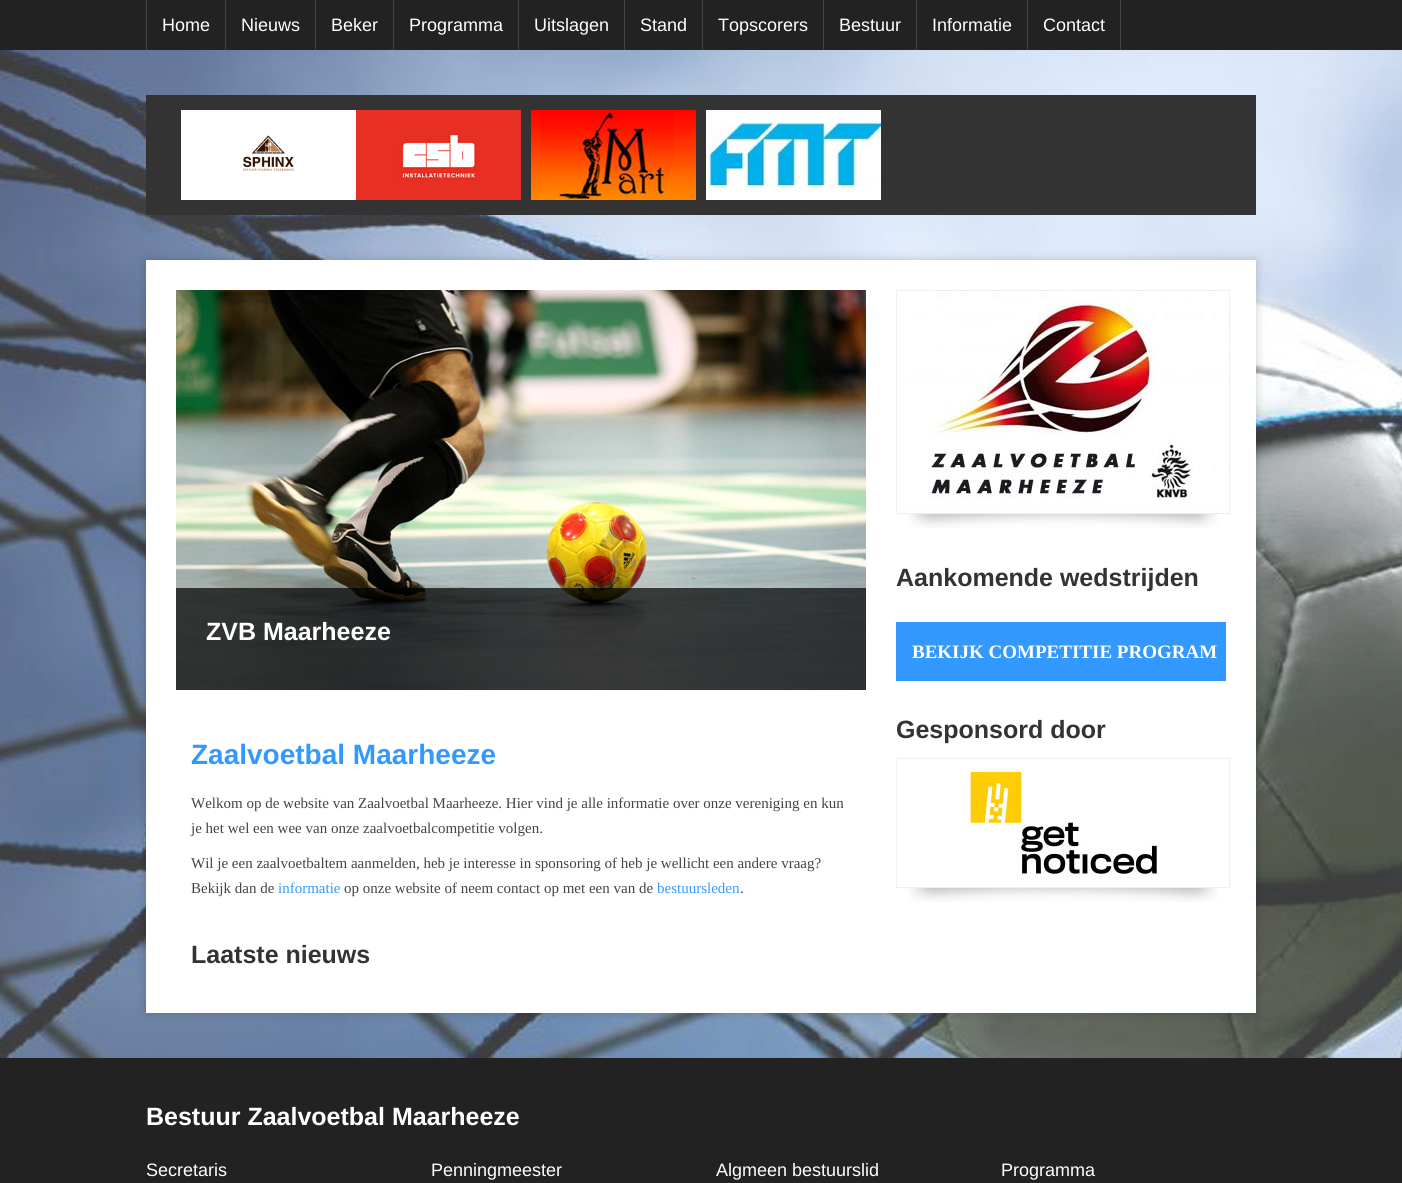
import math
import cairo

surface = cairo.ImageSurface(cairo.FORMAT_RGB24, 1402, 1183)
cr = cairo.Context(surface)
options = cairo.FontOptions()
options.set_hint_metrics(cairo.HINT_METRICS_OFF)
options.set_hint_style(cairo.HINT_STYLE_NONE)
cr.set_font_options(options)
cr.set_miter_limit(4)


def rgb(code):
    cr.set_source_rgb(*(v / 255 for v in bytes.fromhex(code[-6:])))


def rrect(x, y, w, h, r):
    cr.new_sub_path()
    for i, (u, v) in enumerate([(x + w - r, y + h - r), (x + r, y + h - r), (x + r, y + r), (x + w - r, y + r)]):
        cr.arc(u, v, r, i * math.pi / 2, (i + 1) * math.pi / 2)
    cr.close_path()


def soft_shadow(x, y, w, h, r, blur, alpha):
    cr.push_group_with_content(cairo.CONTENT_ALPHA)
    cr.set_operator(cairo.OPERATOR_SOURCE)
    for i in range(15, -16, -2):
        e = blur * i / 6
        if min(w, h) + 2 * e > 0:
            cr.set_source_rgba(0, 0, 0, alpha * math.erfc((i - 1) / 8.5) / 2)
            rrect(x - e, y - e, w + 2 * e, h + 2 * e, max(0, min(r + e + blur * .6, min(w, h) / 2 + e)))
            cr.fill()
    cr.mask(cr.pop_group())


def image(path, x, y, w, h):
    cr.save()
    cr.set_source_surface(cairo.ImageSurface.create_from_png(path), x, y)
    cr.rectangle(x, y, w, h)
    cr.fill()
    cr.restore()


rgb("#ffffff")
cr.paint()
image("img/1.png", 0, 50, 1402, 1008)
for x, y, w, h, color in [
    (0, 0, 1402, 50, "#222222"),
    (146, 0, 1, 50, "#444444"),
    (225, 0, 1, 50, "#444444"),
    (315, 0, 1, 50, "#444444"),
    (393, 0, 1, 50, "#444444"),
    (518, 0, 1, 50, "#444444"),
    (624, 0, 1, 50, "#444444"),
    (702, 0, 1, 50, "#444444"),
    (823, 0, 1, 50, "#444444"),
    (916, 0, 1, 50, "#444444"),
    (1120, 0, 1, 50, "#444444"),
    (1027, 0, 1, 50, "#444444"),
    (146, 95, 1110, 120, "#333333"),
]:
    rgb(color)
    cr.rectangle(x, y, w, h)
    cr.fill()
image("img/2.png", 181, 110, 175, 90)
image("img/3.png", 356, 110, 165, 90)
image("img/4.png", 531, 110, 165, 90)
image("img/5.png", 706, 110, 175, 90)
rgb("#000000")
soft_shadow(146, 260, 1110, 753, 0, 5, 0.2)
rgb("#ffffff")
cr.rectangle(146, 260, 1110, 753)
cr.fill()
image("img/6.png", 176, 290, 690, 400)
cr.set_source_rgba(0, 0, 0, 0.7)
cr.rectangle(176, 588, 690, 102)
cr.fill()
image("img/7.png", 908, 514, 310, 14)
image("img/8.png", 896, 290, 334, 224)
rgb("#3399ff")
cr.rectangle(896, 622, 330, 59)
cr.fill()
image("img/7.png", 908, 888, 310, 14)
cr.rectangle(896.5, 758.5, 333, 129)
rgb("#efefef")
cr.set_line_width(1)
cr.stroke()
image("img/9.png", 969, 767, 192, 112)
rgb("#222222")
cr.rectangle(0, 1058, 1402, 125)
cr.fill()
cr.select_font_face("Liberation Sans")
cr.set_font_size(18)
rgb("#ffffff")
for x, y, s in [
    (162, 31, "Home"),
    (241, 31, "Nieuws"),
    (331, 31, "Beker"),
    (409, 31, "Programma"),
    (534, 31, "Uitslagen"),
    (640, 31, "Stand"),
    (718, 31, "Topscorers"),
    (839, 31, "Bestuur"),
    (932, 31, "Informatie"),
    (1043, 31, "Contact"),
]:
    cr.move_to(x, y)
    cr.show_text(s)
cr.select_font_face("Liberation Sans", cairo.FONT_SLANT_NORMAL, cairo.FONT_WEIGHT_BOLD)
cr.set_font_size(25)
cr.move_to(206, 640)
cr.show_text("ZVB Maarheeze")
cr.set_font_size(28)
rgb("#3399ff")
cr.move_to(191, 764)
cr.show_text("Zaalvoetbal Maarheeze")
cr.select_font_face("Liberation Serif")
cr.set_font_size(15)
rgb("#444444")
for x, y, s in [
    (191, 808, "Welkom op de website van Zaalvoetbal Maarheeze. Hier vind je alle informatie over onze vereniging en kun"),
    (191, 833, "je het wel een wee van onze zaalvoetbalcompetitie volgen."),
    (191, 868, "Wil je een zaalvoetbaltem aanmelden, heb je interesse in sponsoring of heb je wellicht een andere vraag?"),
    (191, 893, "Bekijk dan de"),
]:
    cr.move_to(x, y)
    cr.show_text(s)
rgb("#3399ff")
cr.move_to(278, 893)
cr.show_text("informatie")
rgb("#444444")
cr.move_to(344, 893)
cr.show_text("op onze website of neem contact op met een van de")
rgb("#3399ff")
cr.move_to(657, 893)
cr.show_text("bestuursleden")
rgb("#444444")
cr.move_to(740, 893)
cr.show_text(".")
cr.select_font_face("Liberation Sans", cairo.FONT_SLANT_NORMAL, cairo.FONT_WEIGHT_BOLD)
cr.set_font_size(25)
rgb("#333333")
cr.move_to(191, 963)
cr.show_text("Laatste nieuws")
cr.move_to(896, 586)
cr.show_text("Aankomende wedstrijden")
cr.select_font_face("Liberation Serif", cairo.FONT_SLANT_NORMAL, cairo.FONT_WEIGHT_BOLD)
cr.set_font_size(19)
rgb("#ffffff")
cr.move_to(912, 658)
cr.show_text("BEKIJK COMPETITIE PROGRAM")
cr.select_font_face("Liberation Sans", cairo.FONT_SLANT_NORMAL, cairo.FONT_WEIGHT_BOLD)
cr.set_font_size(25)
rgb("#333333")
cr.move_to(896, 738)
cr.show_text("Gesponsord door")
rgb("#ffffff")
cr.move_to(146, 1125)
cr.show_text("Bestuur Zaalvoetbal Maarheeze")
cr.select_font_face("Liberation Sans")
cr.set_font_size(18)
for x, y, s in [
    (146, 1176, "Secretaris"),
    (431, 1176, "Penningmeester"),
    (716, 1176, "Algmeen bestuurslid"),
    (1001, 1176, "Programma"),
]:
    cr.move_to(x, y)
    cr.show_text(s)
surface.write_to_png("page.png")
